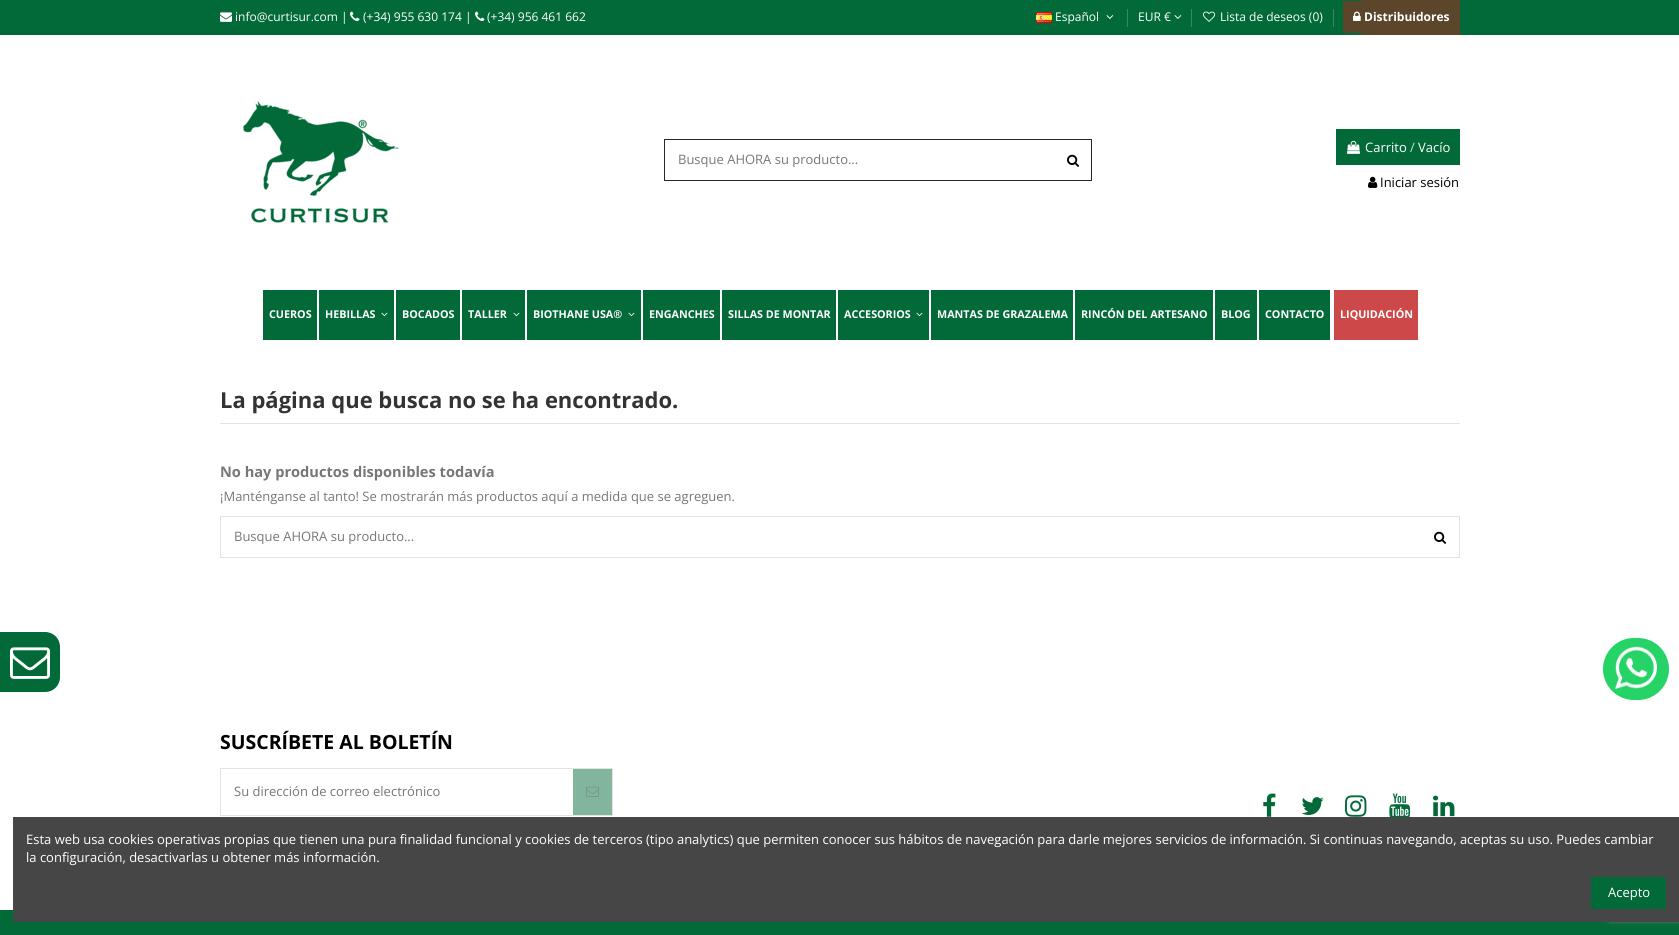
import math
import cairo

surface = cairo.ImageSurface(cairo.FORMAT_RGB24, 1679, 935)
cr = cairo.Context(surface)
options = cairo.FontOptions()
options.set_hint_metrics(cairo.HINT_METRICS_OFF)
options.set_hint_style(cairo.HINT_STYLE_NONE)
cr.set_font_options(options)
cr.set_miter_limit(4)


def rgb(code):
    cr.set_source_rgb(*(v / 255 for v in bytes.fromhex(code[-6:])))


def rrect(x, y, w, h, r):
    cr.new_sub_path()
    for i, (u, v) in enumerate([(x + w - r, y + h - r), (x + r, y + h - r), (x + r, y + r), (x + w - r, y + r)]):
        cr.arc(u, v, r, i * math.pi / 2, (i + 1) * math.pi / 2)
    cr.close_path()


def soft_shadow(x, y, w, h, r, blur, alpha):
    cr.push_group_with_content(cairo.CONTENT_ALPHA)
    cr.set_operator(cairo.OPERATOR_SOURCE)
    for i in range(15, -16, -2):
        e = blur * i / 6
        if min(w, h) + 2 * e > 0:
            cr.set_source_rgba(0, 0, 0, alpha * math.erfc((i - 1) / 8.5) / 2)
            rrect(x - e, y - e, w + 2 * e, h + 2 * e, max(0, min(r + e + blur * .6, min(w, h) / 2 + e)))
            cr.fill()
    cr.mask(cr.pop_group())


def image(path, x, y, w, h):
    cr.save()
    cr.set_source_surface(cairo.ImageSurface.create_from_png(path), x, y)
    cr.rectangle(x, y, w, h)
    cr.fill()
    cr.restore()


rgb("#ffffff")
cr.paint()
rgb("#026a38")
cr.rectangle(0, 0, 1679, 35)
cr.fill()
image("img/1.png", 220, 12, 12, 10)
image("img/2.png", 350, 11, 10, 10)
image("img/2.png", 475, 11, 10, 10)
image("img/3.png", 1036, 12, 16, 11)
image("img/4.png", 1106, 15, 8, 4)
rgb("#358860")
cr.rectangle(1127, 9, 1, 18)
cr.fill()
image("img/4.png", 1174, 15, 8, 4)
cr.rectangle(1191, 9, 1, 18)
cr.fill()
image("img/5.png", 1203, 11, 12, 11)
for x, y, w, h, color in [
    (1333, 9, 1, 18, "#358860"),
    (1343, 1, 18, 32, "#5c462b"),
    (1361, 0, 99, 35, "#5c462b"),
]:
    rgb(color)
    cr.rectangle(x, y, w, h)
    cr.fill()
image("img/6.png", 1353, 11, 8, 10)
image("img/7.png", 243, 101, 156, 122)
cr.rectangle(664.5, 139.5, 427, 41)
rgb("#272727")
cr.set_line_width(1)
cr.stroke()
image("img/8.png", 1067, 154, 12, 13)
rgb("#026a38")
cr.rectangle(1336, 129, 124, 36)
cr.fill()
image("img/9.png", 1347, 140, 13, 14)
image("img/10.png", 1368, 176, 10, 12)
cr.rectangle(263, 290, 54, 50)
cr.fill()
cr.rectangle(319, 290, 75, 50)
cr.fill()
image("img/11.png", 381, 312, 7, 5)
cr.rectangle(396, 290, 64, 50)
cr.fill()
cr.rectangle(462, 290, 63, 50)
cr.fill()
image("img/11.png", 513, 312, 7, 5)
cr.rectangle(527, 290, 114, 50)
cr.fill()
image("img/11.png", 628, 312, 7, 5)
for x, y, w, h, color in [
    (643, 290, 77, 50, "#026a38"),
    (722, 290, 114, 50, "#026a38"),
    (838, 290, 91, 50, "#026a38"),
]:
    rgb(color)
    cr.rectangle(x, y, w, h)
    cr.fill()
image("img/11.png", 916, 312, 7, 5)
for x, y, w, h, color in [
    (931, 290, 142, 50, "#026a38"),
    (1075, 290, 138, 50, "#026a38"),
    (1215, 290, 42, 50, "#026a38"),
    (1259, 290, 71, 50, "#026a38"),
    (1334, 290, 84, 50, "#cd4949"),
    (220, 423, 1240, 1, "#e3e3e3"),
]:
    rgb(color)
    cr.rectangle(x, y, w, h)
    cr.fill()
cr.rectangle(220.5, 516.5, 1239, 41)
cr.stroke()
image("img/8.png", 1434, 531, 12, 13)
rgb("#026a38")
cr.rectangle(0, 910, 1679, 25)
cr.fill()
cr.new_path()
cr.move_to(0, 632)
cr.line_to(45, 632)
cr.curve_to(53.5, 632, 60, 638.5, 60, 647)
cr.line_to(60, 677)
cr.curve_to(60, 685.5, 53.5, 692, 45, 692)
cr.line_to(0, 692)
cr.close_path()
cr.fill()
image("img/12.png", 10, 647, 40, 32)
cr.rectangle(220.5, 768.5, 392, 47)
rgb("#e3e3e3")
cr.stroke()
rgb("#81b59c")
cr.rectangle(573, 769, 39, 46)
cr.fill()
image("img/13.png", 586, 786, 13, 11)
image("img/14.png", 1263, 793, 13, 24)
image("img/15.png", 1301, 797, 23, 18)
image("img/16.png", 1345, 795, 22, 22)
image("img/17.png", 1389, 793, 22, 24)
image("img/18.png", 1433, 795, 22, 22)
rgb("#25d366")
rrect(1603, 638, 66, 62, 31)
cr.fill()
image("img/19.png", 1615, 646, 42, 43)
rgb("#808080")
soft_shadow(1609, 861, 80, 60, 2, 2.5, 1)
rgb("#464646")
cr.rectangle(13, 817, 1666, 105)
cr.fill()
rgb("#026a38")
cr.rectangle(1591, 877, 75, 32)
cr.fill()
cr.select_font_face("Open Sans")
cr.set_font_size(12)
rgb("#ffffff")
for x, y, s in [
    (235, 21, "info@curtisur.com |"),
    (363, 21, "(+34) 955 630 174 |"),
    (487, 21, "(+34) 956 461 662"),
    (1055, 21, "Español"),
    (1138, 21, "EUR €"),
    (1220, 21, "Lista de deseos (0)"),
]:
    cr.move_to(x, y)
    cr.show_text(s)
cr.select_font_face("Open Sans", cairo.FONT_SLANT_NORMAL, cairo.FONT_WEIGHT_BOLD)
cr.move_to(1364, 21)
cr.show_text("Distribuidores")
cr.select_font_face("Open Sans")
cr.set_font_size(13)
rgb("#777777")
cr.move_to(678, 164)
cr.show_text("Busque AHORA su producto...")
rgb("#ffffff")
cr.move_to(1365, 152)
cr.show_text("Carrito")
rgb("#cce1d7")
cr.move_to(1410, 152)
cr.show_text("/")
rgb("#ffffff")
cr.move_to(1418, 152)
cr.show_text("Vacío")
rgb("#000000")
cr.move_to(1380, 187)
cr.show_text("Iniciar sesión")
cr.select_font_face("Open Sans", cairo.FONT_SLANT_NORMAL, cairo.FONT_WEIGHT_BOLD)
cr.set_font_size(10.75)
rgb("#ffffff")
for x, y, s in [
    (269, 318, "CUEROS"),
    (325, 318, "HEBILLAS"),
    (402, 318, "BOCADOS"),
    (468, 318, "TALLER"),
    (533, 318, "BIOTHANE USA®"),
    (649, 318, "ENGANCHES"),
    (728, 318, "SILLAS DE MONTAR"),
    (844, 318, "ACCESORIOS"),
    (937, 318, "MANTAS DE GRAZALEMA"),
    (1081, 318, "RINCÓN DEL ARTESANO"),
    (1221, 318, "BLOG"),
    (1265, 318, "CONTACTO"),
    (1340, 318, "LIQUIDACIÓN"),
]:
    cr.move_to(x, y)
    cr.show_text(s)
cr.set_font_size(22)
rgb("#333333")
cr.move_to(220, 408)
cr.show_text("La página que busca no se ha encontrado.")
cr.set_font_size(14.6)
rgb("#777777")
cr.move_to(220, 477)
cr.show_text("No hay productos disponibles todavía")
cr.select_font_face("Open Sans")
cr.set_font_size(13)
cr.move_to(220, 501)
cr.show_text("¡Manténganse al tanto! Se mostrarán más productos aquí a medida que se agreguen.")
cr.move_to(234, 541)
cr.show_text("Busque AHORA su producto...")
cr.select_font_face("Open Sans", cairo.FONT_SLANT_NORMAL, cairo.FONT_WEIGHT_BOLD)
cr.set_font_size(19.5)
rgb("#000000")
cr.move_to(220, 749)
cr.show_text("SUSCRÍBETE AL BOLETÍN")
cr.select_font_face("Open Sans")
cr.set_font_size(13)
rgb("#777777")
cr.move_to(234, 796)
cr.show_text("Su dirección de correo electrónico")
rgb("#ffffff")
for x, y, s in [
    (26, 844, "Esta web usa cookies operativas propias que tienen una pura finalidad funcional y cookies de terceros (tipo analytics) que permiten conocer sus hábitos de navegación para darle mejores servicios de información. Si continuas navegando, aceptas su uso. Puedes cambiar"),
    (26, 862, "la configuración, desactivarlas u obtener más información."),
    (1608, 897, "Acepto"),
]:
    cr.move_to(x, y)
    cr.show_text(s)
surface.write_to_png("page.png")
